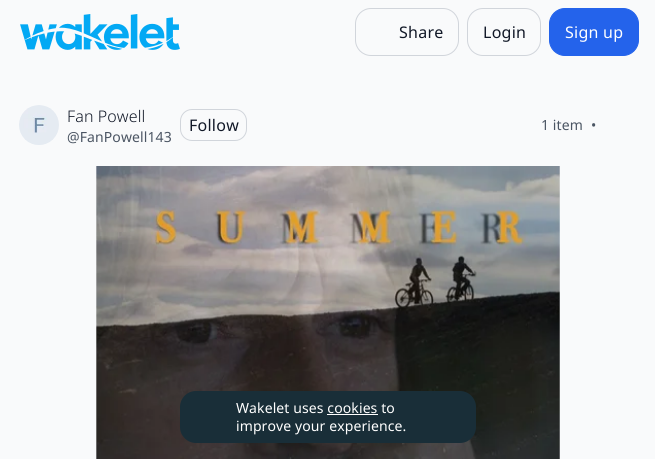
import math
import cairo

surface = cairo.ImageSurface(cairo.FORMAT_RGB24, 655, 459)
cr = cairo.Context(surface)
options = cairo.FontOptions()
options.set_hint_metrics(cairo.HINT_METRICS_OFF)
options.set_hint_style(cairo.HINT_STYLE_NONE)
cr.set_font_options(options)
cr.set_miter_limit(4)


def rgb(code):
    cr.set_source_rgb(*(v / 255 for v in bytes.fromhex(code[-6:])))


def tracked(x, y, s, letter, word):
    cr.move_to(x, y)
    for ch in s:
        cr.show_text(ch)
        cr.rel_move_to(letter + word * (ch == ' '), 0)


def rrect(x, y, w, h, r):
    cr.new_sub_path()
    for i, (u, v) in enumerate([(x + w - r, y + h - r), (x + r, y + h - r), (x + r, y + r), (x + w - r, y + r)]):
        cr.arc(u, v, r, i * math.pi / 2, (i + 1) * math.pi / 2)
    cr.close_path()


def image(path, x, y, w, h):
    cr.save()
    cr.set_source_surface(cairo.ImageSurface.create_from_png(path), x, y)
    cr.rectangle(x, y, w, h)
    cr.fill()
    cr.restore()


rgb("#f9fafb")
cr.paint()
image("img/1.png", 20, 14, 160, 36)
rrect(355.5, 8.5, 103, 47, 15.5)
rgb("#d1d5db")
cr.set_line_width(1)
cr.stroke()
rrect(467.5, 8.5, 73, 47, 15.5)
cr.stroke()
rgb("#2463eb")
rrect(549.5, 8.5, 89, 47, 15.5)
cr.fill_preserve()
cr.stroke()
image("img/2.png", 19, 105, 40, 40)
rrect(180.5, 109.5, 66, 31, 11.5)
rgb("#d1d5db")
cr.stroke()
image("img/3.png", 96, 166, 464, 293)
rgb("#192e38")
rrect(180, 391, 296, 52, 16)
cr.fill()
rgb("#ffffff")
cr.rectangle(327, 414, 51, 1)
cr.fill()
cr.select_font_face("Noto Sans")
cr.set_font_size(16)
rgb("#111827")
tracked(399, 38, "Share", 0.25, 0)
tracked(483, 38, "Login", 0.25, 0)
rgb("#ffffff")
tracked(565, 38, "Sign up", 0.25, 0)
cr.select_font_face("Noto Sans Light")
rgb("#111827")
tracked(67, 122, "Fan Powell", 0.1, 0)
cr.select_font_face("Noto Sans")
cr.set_font_size(14)
rgb("#4b5563")
tracked(67, 142, "@FanPowell143", 0.1, 0)
cr.set_font_size(16)
rgb("#111827")
tracked(189, 131, "Follow", 0.25, 0)
cr.set_font_size(14)
rgb("#4b5563")
tracked(541, 130, "1 item", 0.1, 0)
tracked(591, 130, "•", 0.1, 0)
rgb("#ffffff")
tracked(236, 413, "Wakelet uses cookies to", 0.1, 0)
tracked(236, 431, "improve your experience.", 0.1, 0)
surface.write_to_png("page.png")
